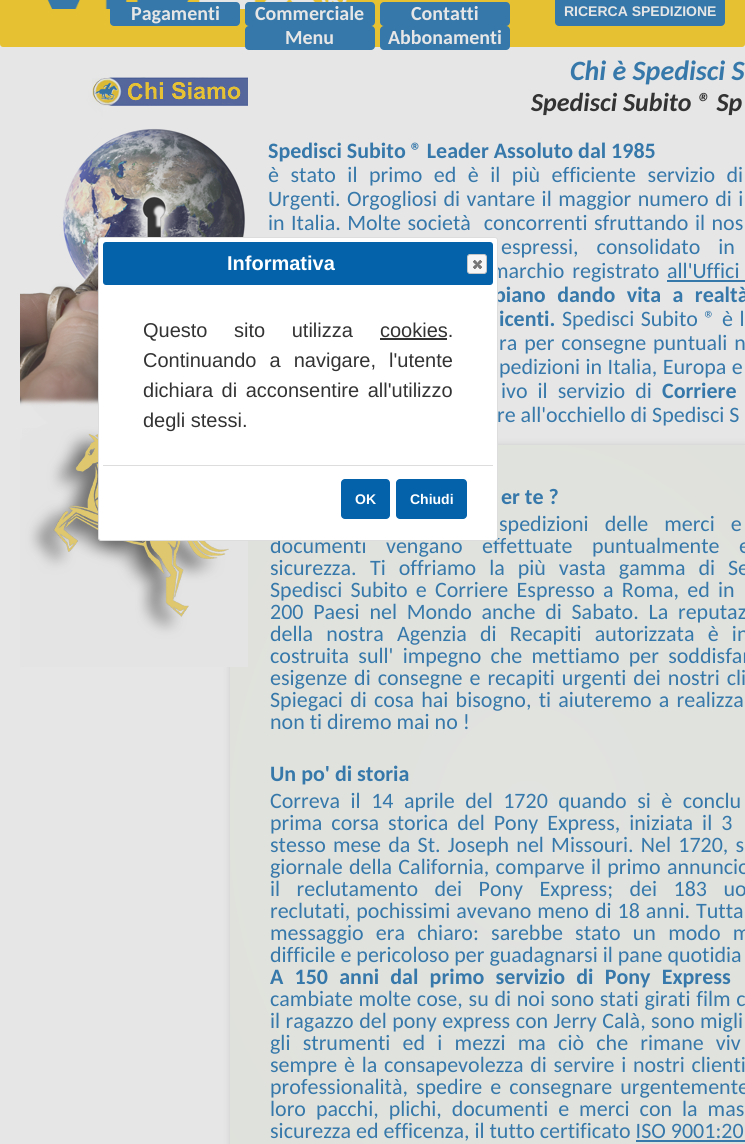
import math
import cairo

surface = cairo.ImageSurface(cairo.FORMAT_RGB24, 745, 1144)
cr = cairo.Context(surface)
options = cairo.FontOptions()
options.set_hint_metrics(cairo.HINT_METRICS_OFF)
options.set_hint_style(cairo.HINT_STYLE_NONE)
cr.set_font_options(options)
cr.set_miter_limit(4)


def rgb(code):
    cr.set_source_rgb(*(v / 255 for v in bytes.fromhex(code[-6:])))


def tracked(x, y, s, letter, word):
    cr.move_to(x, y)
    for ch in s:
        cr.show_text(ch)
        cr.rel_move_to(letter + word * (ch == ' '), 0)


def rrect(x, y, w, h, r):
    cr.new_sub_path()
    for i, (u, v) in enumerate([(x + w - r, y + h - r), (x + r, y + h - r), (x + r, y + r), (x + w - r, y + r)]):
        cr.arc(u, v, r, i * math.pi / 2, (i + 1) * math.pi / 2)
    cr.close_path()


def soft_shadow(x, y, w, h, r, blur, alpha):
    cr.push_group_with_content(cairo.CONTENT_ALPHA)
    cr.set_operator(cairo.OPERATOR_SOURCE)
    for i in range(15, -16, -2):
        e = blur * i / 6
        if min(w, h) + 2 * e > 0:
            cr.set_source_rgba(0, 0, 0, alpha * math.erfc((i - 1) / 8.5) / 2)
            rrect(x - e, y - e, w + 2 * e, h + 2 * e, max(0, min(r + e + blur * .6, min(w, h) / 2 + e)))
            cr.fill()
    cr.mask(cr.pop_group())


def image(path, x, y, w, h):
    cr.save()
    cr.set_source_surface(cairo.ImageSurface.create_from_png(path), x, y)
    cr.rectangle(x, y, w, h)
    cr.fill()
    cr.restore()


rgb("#e6e6e6")
cr.paint()
rgb("#e6c233")
rrect(0, -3, 745, 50, 3)
cr.fill()
image("img/1.png", 47, 0, 300, 9)
rgb("#3678aa")
rrect(110, 2, 130, 24, 4)
cr.fill()
rrect(245, 2, 130, 24, 4)
cr.fill()
rrect(380, 2, 130, 24, 4)
cr.fill()
rrect(245, 26, 130, 24, 4)
cr.fill()
rrect(380, 26, 130, 24, 4)
cr.fill()
rrect(555, -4, 170, 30, 4)
cr.fill()
rgb("#929292")
soft_shadow(235, 450, 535, 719, 10, 5, 1)
gradient = cairo.RadialGradient(0, 0, 0, 0, 0, 1)
gradient.set_matrix(cairo.Matrix(1 / 421, 0, 0, 1 / 535, -1 * 528 / 421, -1 * 824 / 535))
gradient.add_color_stop_rgba(0, 0.882, 0.89, 0.878, 1)
gradient.add_color_stop_rgba(1, 0.875, 0.882, 0.859, 1)
cr.set_source(gradient)
cr.rectangle(230, 445, 515, 699)
cr.fill()
image("img/2.png", 20, 77, 228, 590)
rgb("#3678aa")
cr.rectangle(667, 280, 78, 2)
cr.fill()
cr.rectangle(636, 1140, 109, 2)
cr.fill()
cr.select_font_face("Carlito", cairo.FONT_SLANT_NORMAL, cairo.FONT_WEIGHT_BOLD)
cr.set_font_size(20)
rgb("#e6e6e6")
for x, y, s in [
    (131, 20, "Pagamenti"),
    (255, 20, "Commerciale"),
    (411, 20, "Contatti"),
    (285, 44, "Menu"),
    (388, 44, "Abbonamenti"),
]:
    cr.move_to(x, y)
    cr.show_text(s)
cr.select_font_face("Liberation Sans", cairo.FONT_SLANT_NORMAL, cairo.FONT_WEIGHT_BOLD)
cr.set_font_size(14)
cr.move_to(564, 16)
cr.show_text("RICERCA SPEDIZIONE")
cr.select_font_face("Carlito", cairo.FONT_SLANT_ITALIC, cairo.FONT_WEIGHT_BOLD)
cr.set_font_size(28)
rgb("#3678aa")
cr.move_to(570, 80)
cr.show_text("Chi è Spedisci S")
cr.set_font_size(26)
rgb("#333333")
cr.move_to(531, 111)
cr.show_text("Spedisci Subito ® Sp")
cr.select_font_face("Carlito", cairo.FONT_SLANT_NORMAL, cairo.FONT_WEIGHT_BOLD)
cr.set_font_size(22)
rgb("#3678aa")
cr.move_to(268, 158)
cr.show_text("Spedisci Subito ® Leader Assoluto dal 1985")
cr.select_font_face("Carlito")
tracked(268, 182, "è stato il primo ed è il più efficiente servizio di", 0, 6.5)
tracked(268, 206, "Urgenti. Orgogliosi di vantare il maggior numero di i", 0, 1.5)
tracked(268, 230, "in Italia. Molte società  concorrenti sfruttando il nos", 0, 1.5)
tracked(501, 254, "espressi, consolidato in", 0, 13)
tracked(491, 278, "marchio registrato", 0, 3)
tracked(667, 278, "all'Uffici", 0, 3)
cr.select_font_face("Carlito", cairo.FONT_SLANT_NORMAL, cairo.FONT_WEIGHT_BOLD)
tracked(494, 302, "piano dando vita a realtà", 0, 6.5)
tracked(499, 326, "icenti.", 0, 1.5)
cr.select_font_face("Carlito")
tracked(562, 326, "Spedisci Subito ® è l", 0, 1.5)
tracked(499, 350, "ra per consegne", 0, 2)
tracked(653, 350, "puntuali n", 0, 2)
tracked(499, 374, "pedizioni in Italia, Europa e", 0, 0.5)
tracked(501, 398, "ivo il servizio di", 0, 5)
cr.select_font_face("Carlito", cairo.FONT_SLANT_NORMAL, cairo.FONT_WEIGHT_BOLD)
tracked(662, 398, "Corriere", 0, 5)
cr.select_font_face("Carlito")
cr.move_to(497, 422)
cr.show_text("re all'occhiello di Spedisci S")
cr.select_font_face("Carlito", cairo.FONT_SLANT_NORMAL, cairo.FONT_WEIGHT_BOLD)
cr.move_to(501, 504)
cr.show_text("er te ?")
cr.select_font_face("Carlito")
tracked(499, 531, "spedizioni delle merci e", 0, 11)
tracked(270, 553, "documenti vengano effettuate puntualmente e", 0, 14.5)
cr.move_to(270, 575)
cr.show_text("sicurezza.")
tracked(370, 575, "Ti offriamo la più vasta gamma di Se", 0, 8)
tracked(270, 597, "Spedisci Subito e Corriere Espresso a Roma, ed in", 0, 3.25)
tracked(270, 619, "200 Paesi nel Mondo anche di Sabato. La reputaz", 0, 4.75)
tracked(270, 641, "della nostra Agenzia di Recapiti autorizzata è in", 0, 8.25)
tracked(270, 663, "costruita sull' impegno che mettiamo per soddisfar", 0, 4.25)
tracked(270, 685, "esigenze di consegne e recapiti urgenti dei nostri cli", 0, 2)
tracked(270, 707, "Spiegaci di cosa hai bisogno, ti aiuteremo a realizza", 0, 2.25)
cr.move_to(270, 729)
cr.show_text("non ti diremo mai no !")
cr.select_font_face("Carlito", cairo.FONT_SLANT_NORMAL, cairo.FONT_WEIGHT_BOLD)
cr.move_to(270, 781)
cr.show_text("Un po' di storia")
cr.select_font_face("Carlito")
tracked(270, 808, "Correva il 14 aprile del 1720 quando si è conclu", 0, 5.5)
tracked(270, 830, "prima corsa storica del Pony Express, iniziata il 3", 0, 4)
tracked(270, 852, "stesso mese da St. Joseph nel Missouri. Nel 1720, s", 0, 2.25)
tracked(270, 874, "giornale della California, comparve il primo annuncio", 0, 1.25)
tracked(270, 896, "il reclutamento dei Pony Express; dei 183 uo", 0, 11.5)
tracked(270, 918, "reclutati, pochissimi avevano meno di 18 anni. Tutta", 0, 1)
tracked(270, 940, "messaggio era chiaro: sarebbe stato un modo m", 0, 7.25)
cr.move_to(270, 962)
cr.show_text("difficile e pericoloso per guadagnarsi il pane quotidia")
cr.select_font_face("Carlito", cairo.FONT_SLANT_NORMAL, cairo.FONT_WEIGHT_BOLD)
tracked(270, 984, "A 150 anni dal primo servizio di Pony Express", 0, 6.25)
cr.select_font_face("Carlito")
tracked(270, 1006, "cambiate molte cose, su di noi sono stati girati film c", 0, 0.75)
tracked(270, 1028, "il ragazzo del pony express con Jerry Calà, sono migli", 0, 0.5)
tracked(270, 1050, "gli strumenti ed i mezzi ma ciò che rimane viv", 0, 7.25)
tracked(270, 1072, "sempre è la consapevolezza di servire i nostri clienti", 0, 1.75)
tracked(270, 1094, "professionalità, spedire e consegnare urgentemente", 0, 3)
tracked(270, 1116, "loro pacchi, plichi, documenti e merci con la mas", 0, 5)
cr.move_to(270, 1138)
cr.show_text("sicurezza ed efficenza, il tutto certificato ISO 9001:20")
rgb("#ffffff")
rrect(98.5, 237.5, 399, 303, 2.5)
cr.fill_preserve()
rgb("#dddddd")
cr.set_line_width(1)
cr.stroke()
rgb("#0462aa")
rrect(103, 242, 390, 43, 3)
cr.fill()
cr.select_font_face("Liberation Sans", cairo.FONT_SLANT_NORMAL, cairo.FONT_WEIGHT_BOLD)
cr.set_font_size(20)
rgb("#ffffff")
cr.move_to(227, 270)
cr.show_text("Informativa")
rgb("#f6f6f6")
rrect(467.5, 254.5, 19, 19, 2.5)
cr.fill_preserve()
rgb("#c5c5c5")
cr.stroke()
image("img/3.png", 473, 260, 9, 9)
cr.select_font_face("Liberation Sans")
rgb("#333333")
tracked(143, 337, "Questo sito utilizza", 0, 21)
cr.move_to(380, 337)
cr.show_text("cookies.")
cr.rectangle(380, 338, 67, 2)
cr.fill()
tracked(143, 367, "Continuando a navigare, l'utente", 0, 7.5)
tracked(143, 397, "dichiara di acconsentire all'utilizzo", 0, 3)
cr.move_to(143, 427)
cr.show_text("degli stessi.")
rgb("#dddddd")
cr.rectangle(103, 465, 390, 1)
cr.fill()
rgb("#0462aa")
rrect(341, 479, 49, 40, 4)
cr.fill()
cr.select_font_face("Liberation Sans", cairo.FONT_SLANT_NORMAL, cairo.FONT_WEIGHT_BOLD)
cr.set_font_size(14)
rgb("#ffffff")
cr.move_to(355, 504)
cr.show_text("OK")
rgb("#0462aa")
rrect(396, 479, 71, 40, 4)
cr.fill()
rgb("#ffffff")
cr.move_to(410, 504)
cr.show_text("Chiudi")
surface.write_to_png("page.png")
